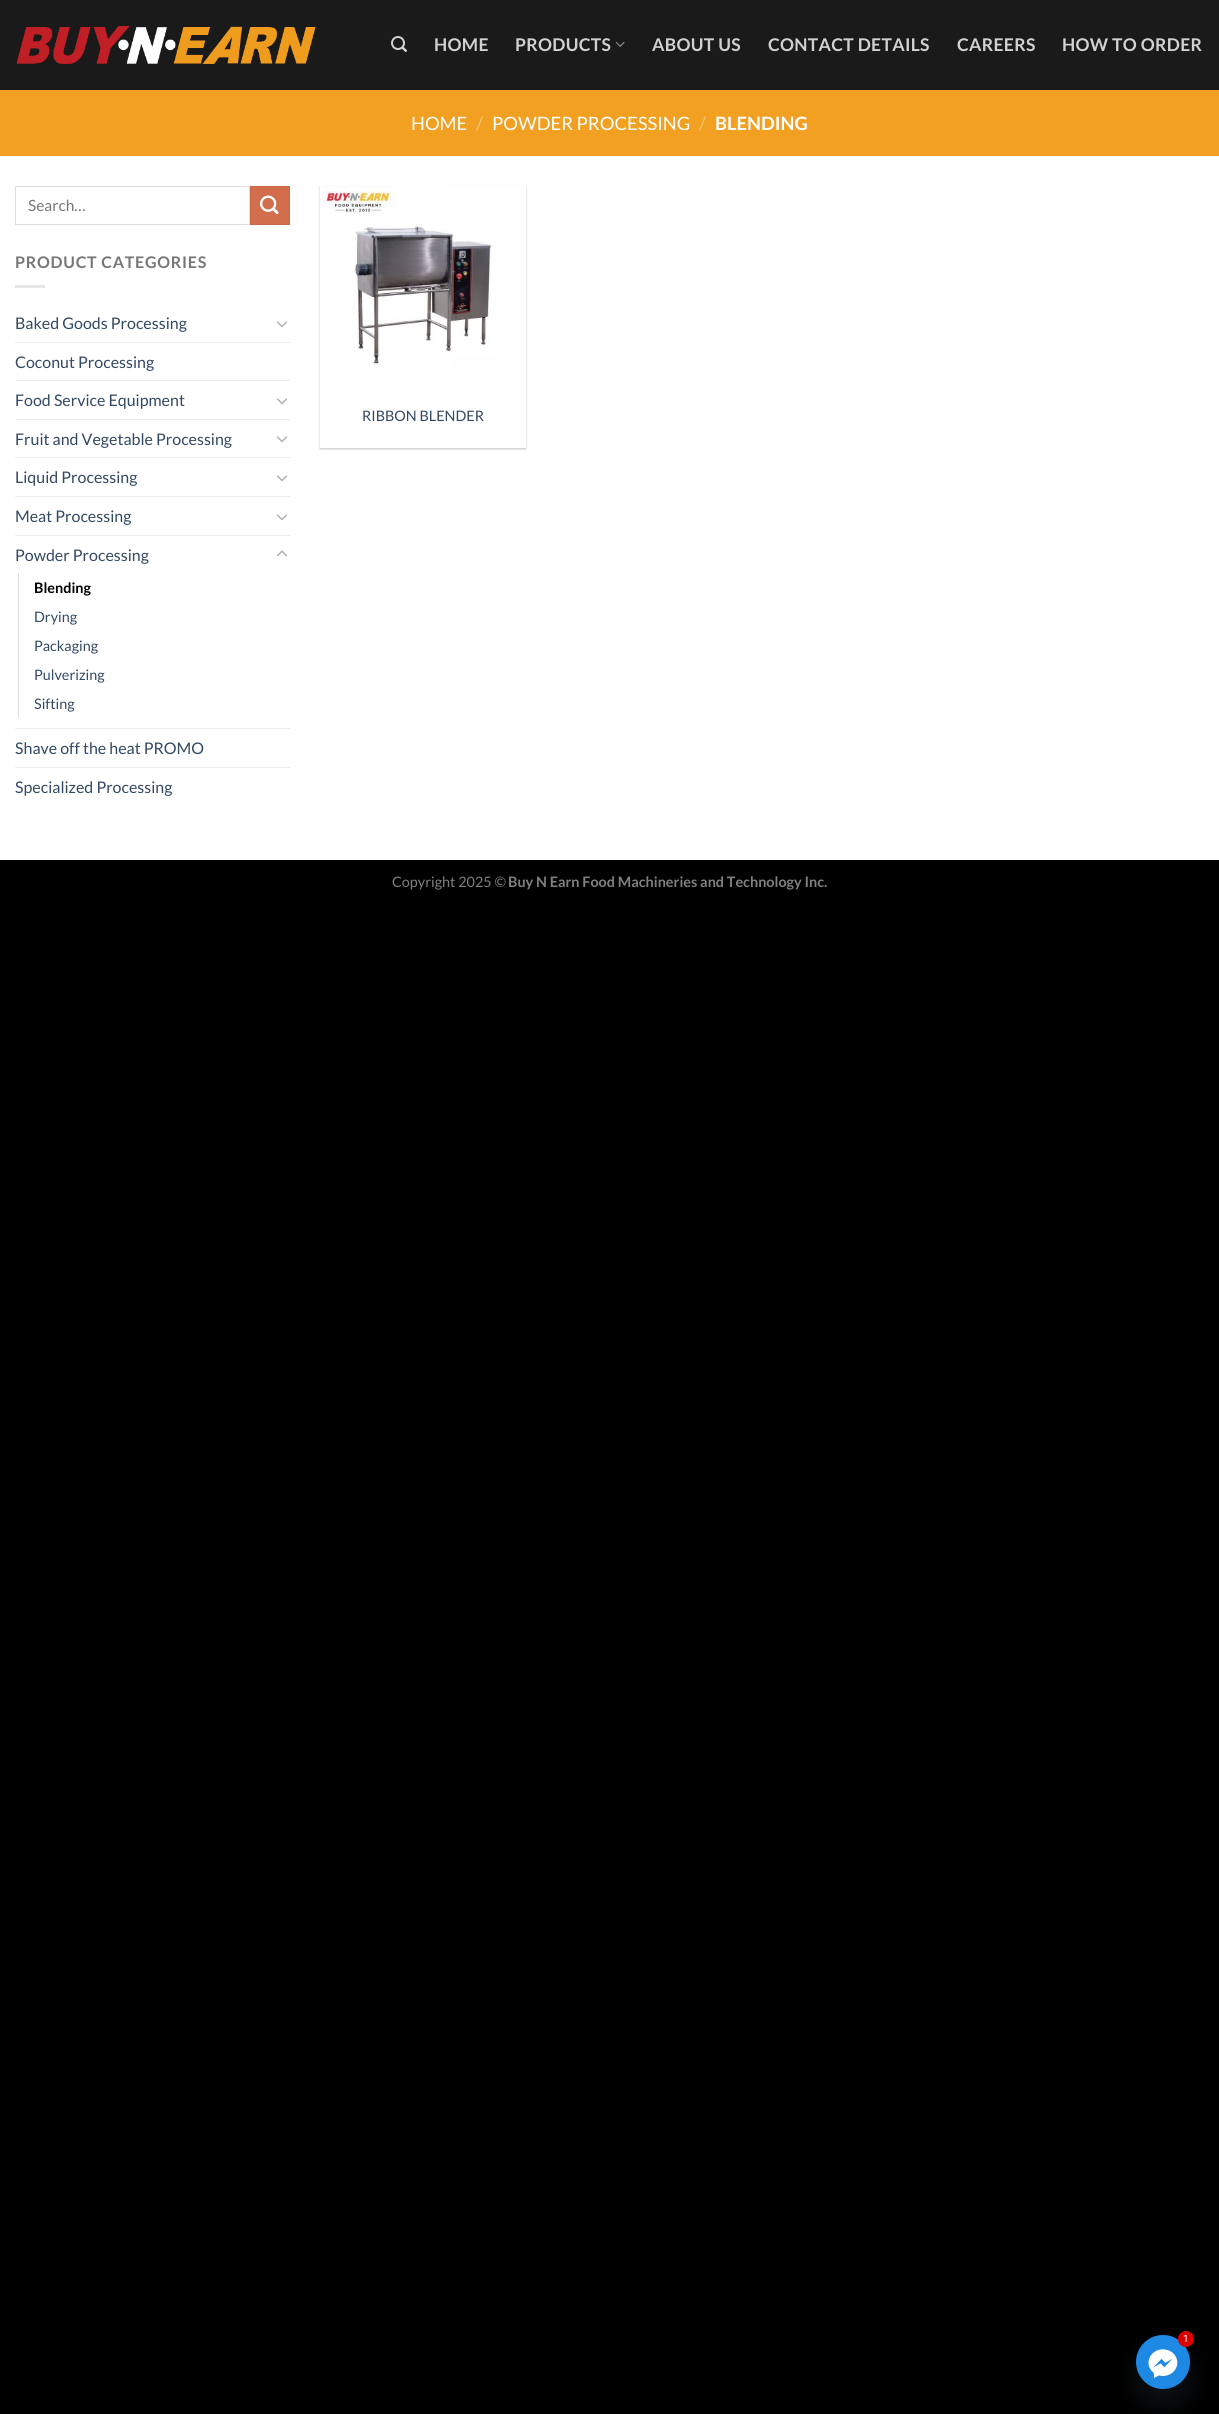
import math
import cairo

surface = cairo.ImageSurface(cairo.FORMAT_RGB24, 1219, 2414)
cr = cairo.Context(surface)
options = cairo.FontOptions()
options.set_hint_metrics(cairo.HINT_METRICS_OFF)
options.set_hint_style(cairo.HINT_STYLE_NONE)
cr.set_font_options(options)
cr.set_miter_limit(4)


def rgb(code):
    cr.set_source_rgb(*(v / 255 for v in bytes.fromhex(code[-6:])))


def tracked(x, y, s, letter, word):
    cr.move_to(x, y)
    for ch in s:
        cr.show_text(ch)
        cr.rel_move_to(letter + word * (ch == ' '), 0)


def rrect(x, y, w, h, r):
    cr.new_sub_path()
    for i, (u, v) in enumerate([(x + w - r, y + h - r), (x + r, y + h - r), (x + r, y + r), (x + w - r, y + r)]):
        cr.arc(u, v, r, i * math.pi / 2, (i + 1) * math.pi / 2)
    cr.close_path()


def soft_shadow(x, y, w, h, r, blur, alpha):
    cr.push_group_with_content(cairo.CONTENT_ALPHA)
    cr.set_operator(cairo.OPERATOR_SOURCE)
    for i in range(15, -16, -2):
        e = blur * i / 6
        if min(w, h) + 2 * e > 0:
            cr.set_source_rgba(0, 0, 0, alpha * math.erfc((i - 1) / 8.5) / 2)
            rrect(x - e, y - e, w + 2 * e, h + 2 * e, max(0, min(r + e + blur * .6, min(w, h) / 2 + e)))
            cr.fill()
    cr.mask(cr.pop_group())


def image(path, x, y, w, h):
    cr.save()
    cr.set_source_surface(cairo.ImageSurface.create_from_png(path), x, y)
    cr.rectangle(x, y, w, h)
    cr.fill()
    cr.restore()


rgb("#000000")
cr.paint()
rgb("#ffffff")
cr.rectangle(0, 156, 1219, 704)
cr.fill()
rgb("#1a1a1a")
cr.rectangle(0, 0, 1219, 90)
cr.fill()
image("img/1.png", 16, 26, 300, 38)
image("img/2.png", 391, 36, 16, 16)
image("img/3.png", 615, 41, 10, 6)
rgb("#f1a021")
cr.rectangle(0, 90, 1219, 66)
cr.fill()
cr.rectangle(15.5, 186.5, 234, 38)
rgb("#dddddd")
cr.set_line_width(1)
cr.stroke()
rgb("#d26e4b")
cr.rectangle(250.5, 186.5, 39, 38)
cr.fill_preserve()
rgb("#c86947")
cr.stroke()
image("img/4.png", 260, 195, 19, 20)
rgb("#e6e6e6")
cr.rectangle(15, 285, 30, 3)
cr.fill()
image("img/5.png", 276, 321, 12, 7)
rgb("#ececec")
cr.rectangle(15, 342, 275, 1)
cr.fill()
cr.rectangle(15, 380, 275, 1)
cr.fill()
image("img/5.png", 276, 398, 12, 7)
cr.rectangle(15, 419, 275, 1)
cr.fill()
image("img/5.png", 276, 436, 12, 7)
cr.rectangle(15, 457, 275, 1)
cr.fill()
image("img/5.png", 276, 475, 12, 7)
cr.rectangle(15, 496, 275, 1)
cr.fill()
image("img/5.png", 276, 514, 12, 7)
cr.rectangle(15, 535, 275, 1)
cr.fill()
image("img/6.png", 276, 550, 12, 7)
for x, y, w, h, color in [
    (18, 573, 1, 145, "#dddddd"),
    (15, 728, 275, 1, "#ececec"),
    (15, 767, 275, 1, "#ececec"),
]:
    rgb(color)
    cr.rectangle(x, y, w, h)
    cr.fill()
cr.save()
cr.set_fill_rule(cairo.FILL_RULE_EVEN_ODD)
cr.new_path()
cr.move_to(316, 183)
cr.line_to(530, 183)
cr.line_to(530, 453)
cr.line_to(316, 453)
cr.close_path()
cr.move_to(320, 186)
cr.line_to(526, 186)
cr.line_to(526, 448)
cr.line_to(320, 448)
cr.close_path()
cr.clip()
rgb("#000000")
soft_shadow(320, 187, 206, 262, 0, 1, 0.24)
cr.restore()
image("img/7.png", 320, 186, 176, 181)
rgb("#49687e")
soft_shadow(1136, 2351, 54, 54, 27, 12, 0.16)
image("img/8.png", 1136, 2335, 54, 54)
rgb("#dd0000")
cr.arc(1186, 2339, 8, 0, 2 * math.pi)
cr.fill()
cr.select_font_face("Lato", cairo.FONT_SLANT_NORMAL, cairo.FONT_WEIGHT_BOLD)
cr.set_font_size(17.5)
rgb("#d1d1d1")
for x, y, s in [
    (434, 51, "HOME"),
    (515, 51, "PRODUCTS"),
    (652, 51, "ABOUT US"),
    (768, 51, "CONTACT DETAILS"),
    (957, 51, "CAREERS"),
    (1062, 51, "HOW TO ORDER"),
]:
    tracked(x, y, s, 0.3, 0)
cr.select_font_face("Lato")
cr.set_font_size(18.4)
rgb("#ffffff")
cr.move_to(411, 130)
cr.show_text("HOME")
rgb("#f6c16f")
cr.move_to(476, 130)
cr.show_text("/")
rgb("#ffffff")
cr.move_to(492, 130)
cr.show_text("POWDER PROCESSING")
rgb("#f6c16f")
cr.move_to(699, 130)
cr.show_text("/")
cr.select_font_face("Lato", cairo.FONT_SLANT_NORMAL, cairo.FONT_WEIGHT_BOLD)
rgb("#ffffff")
cr.move_to(715, 130)
cr.show_text("BLENDING")
cr.select_font_face("Lato")
cr.set_font_size(15.5)
rgb("#777777")
cr.move_to(28, 211)
cr.show_text("Search…")
cr.select_font_face("Lato", cairo.FONT_SLANT_NORMAL, cairo.FONT_WEIGHT_BOLD)
cr.set_font_size(16)
tracked(15, 268, "PRODUCT CATEGORIES", 0.75, 0)
cr.select_font_face("Lato")
rgb("#334862")
for x, y, s in [
    (15, 329, "Baked Goods Processing"),
    (15, 368, "Coconut Processing"),
    (15, 406, "Food Service Equipment"),
    (15, 445, "Fruit and Vegetable Processing"),
    (15, 483, "Liquid Processing"),
    (15, 522, "Meat Processing"),
    (15, 561, "Powder Processing"),
]:
    cr.move_to(x, y)
    cr.show_text(s)
cr.select_font_face("Lato", cairo.FONT_SLANT_NORMAL, cairo.FONT_WEIGHT_BOLD)
cr.set_font_size(14.4)
rgb("#000000")
cr.move_to(34, 593)
cr.show_text("Blending")
cr.select_font_face("Lato")
rgb("#334862")
for x, y, s in [
    (34, 622, "Drying"),
    (34, 651, "Packaging"),
    (34, 680, "Pulverizing"),
    (34, 709, "Sifting"),
]:
    cr.move_to(x, y)
    cr.show_text(s)
cr.set_font_size(16)
cr.move_to(15, 754)
cr.show_text("Shave off the heat PROMO")
cr.move_to(15, 793)
cr.show_text("Specialized Processing")
cr.set_font_size(14.4)
cr.move_to(362, 421)
cr.show_text("RIBBON BLENDER")
rgb("#808080")
cr.move_to(392, 887)
cr.show_text("Copyright 2025 ©")
cr.select_font_face("Lato", cairo.FONT_SLANT_NORMAL, cairo.FONT_WEIGHT_BOLD)
cr.move_to(508, 887)
cr.show_text("Buy N Earn Food Machineries and Technology Inc.")
cr.select_font_face("Roboto")
cr.set_font_size(10)
rgb("#ffffff")
cr.move_to(1183, 2342)
cr.show_text("1")
surface.write_to_png("page.png")
